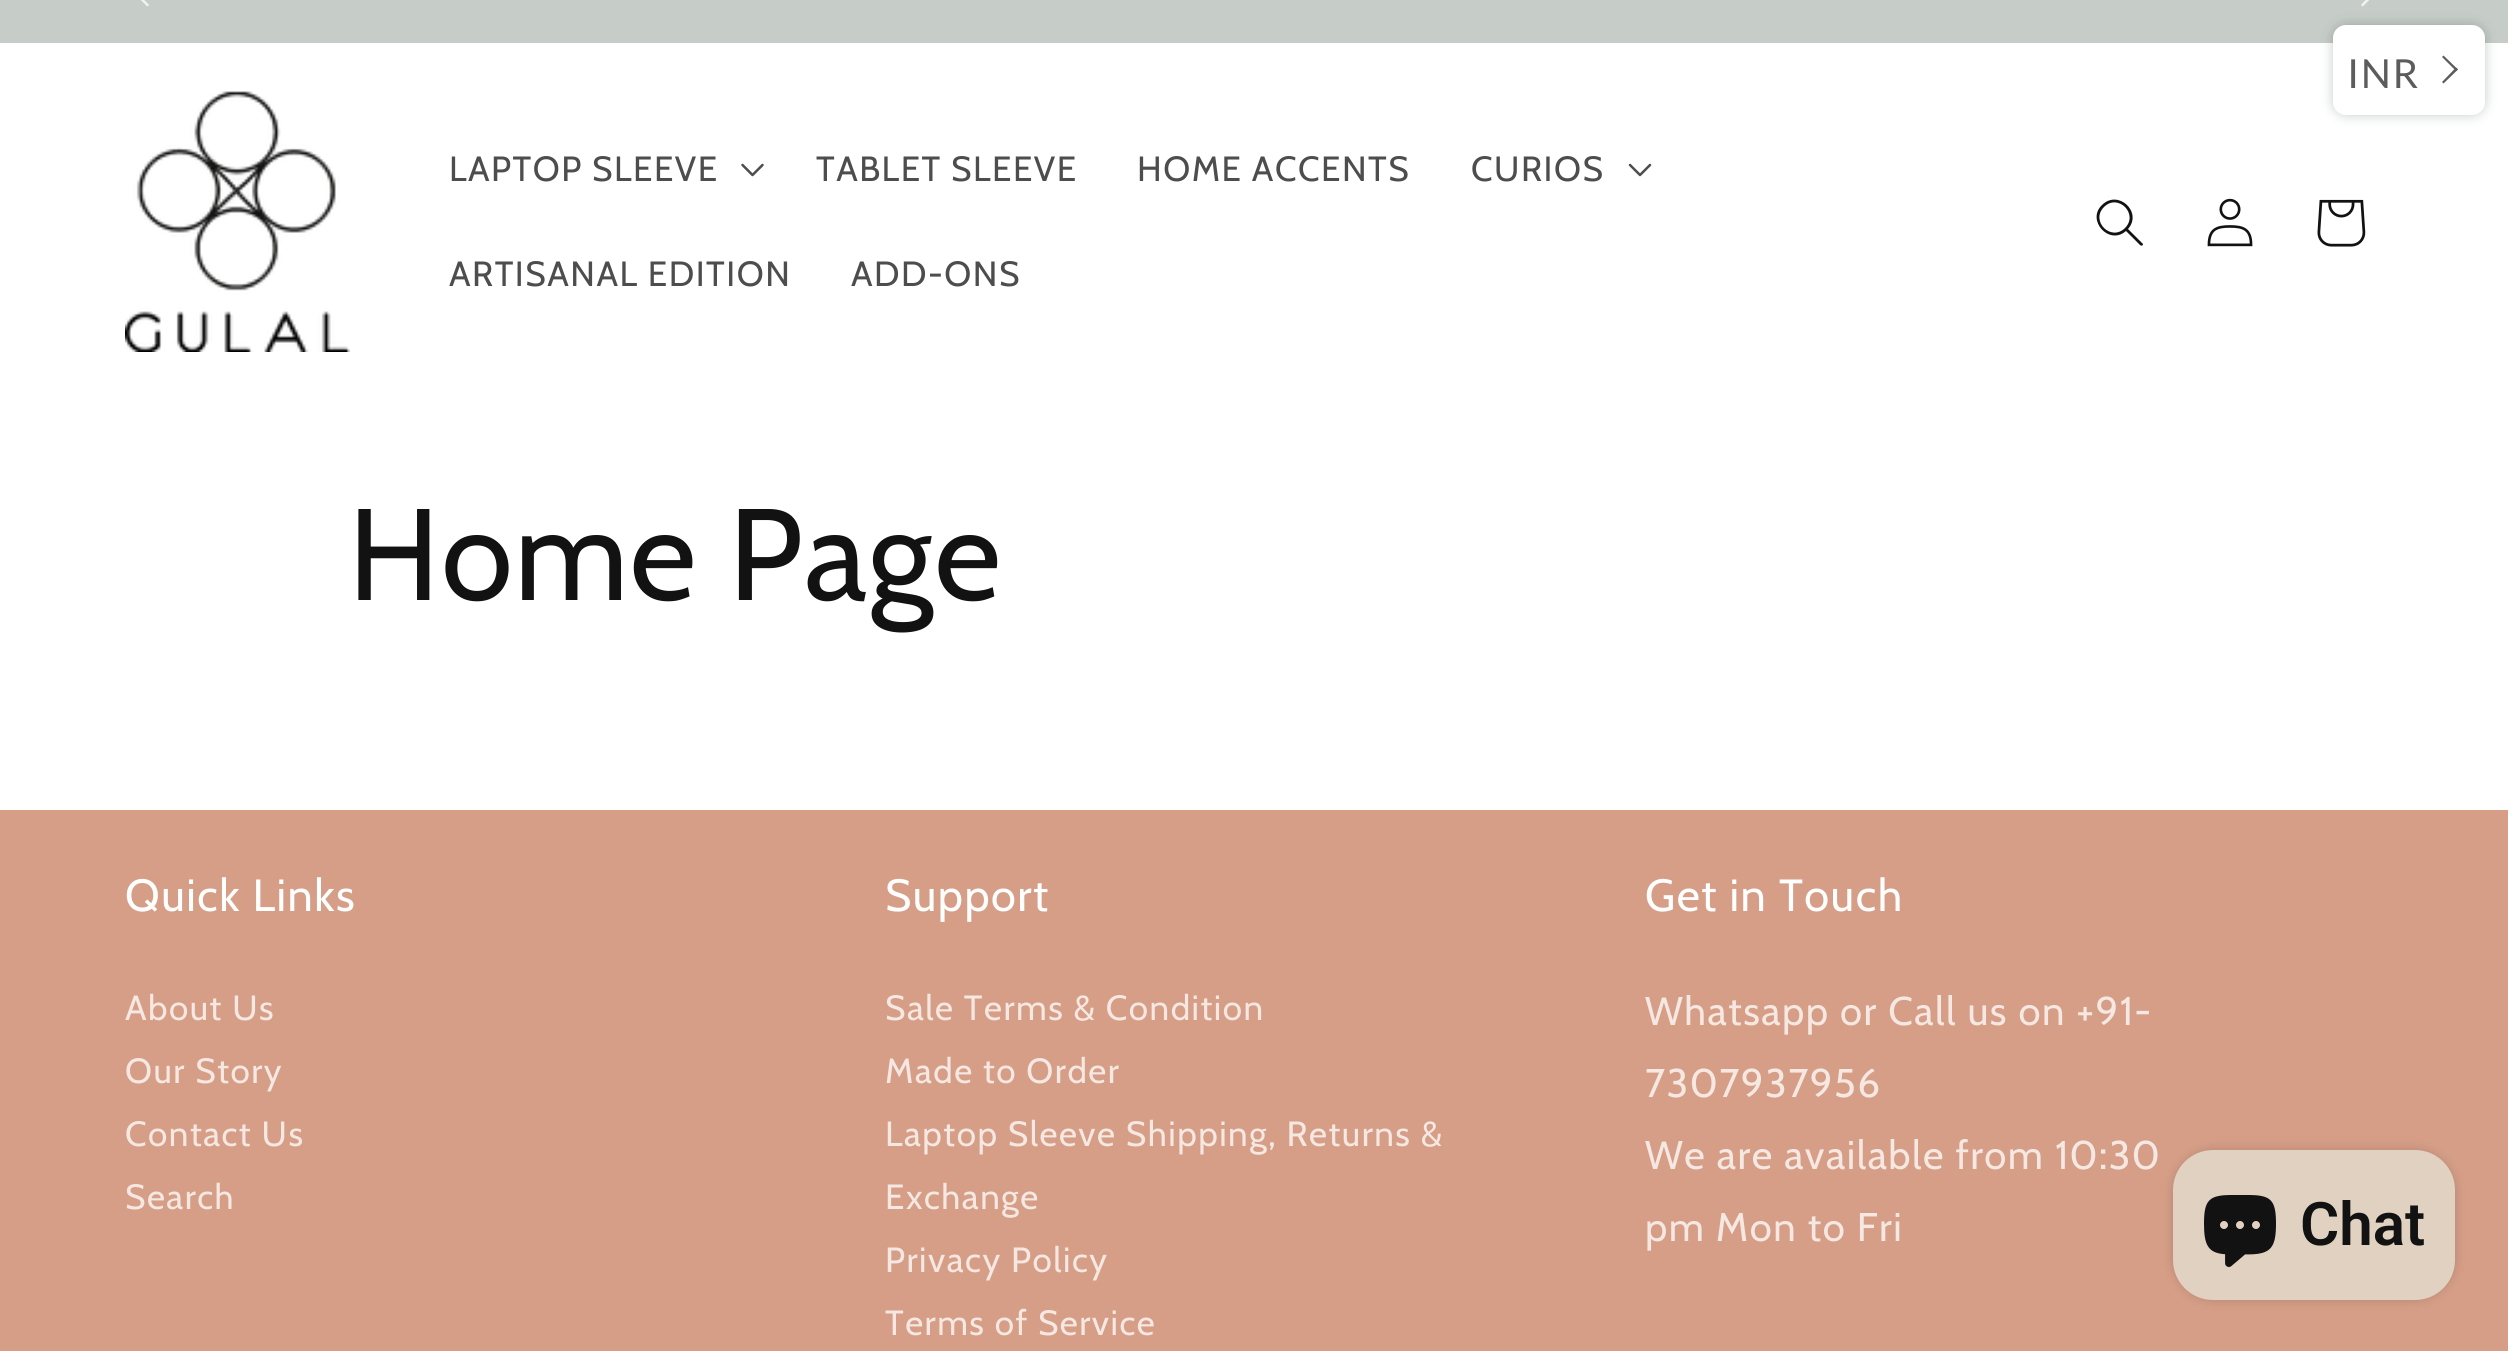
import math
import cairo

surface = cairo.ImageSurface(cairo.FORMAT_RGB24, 2508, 1351)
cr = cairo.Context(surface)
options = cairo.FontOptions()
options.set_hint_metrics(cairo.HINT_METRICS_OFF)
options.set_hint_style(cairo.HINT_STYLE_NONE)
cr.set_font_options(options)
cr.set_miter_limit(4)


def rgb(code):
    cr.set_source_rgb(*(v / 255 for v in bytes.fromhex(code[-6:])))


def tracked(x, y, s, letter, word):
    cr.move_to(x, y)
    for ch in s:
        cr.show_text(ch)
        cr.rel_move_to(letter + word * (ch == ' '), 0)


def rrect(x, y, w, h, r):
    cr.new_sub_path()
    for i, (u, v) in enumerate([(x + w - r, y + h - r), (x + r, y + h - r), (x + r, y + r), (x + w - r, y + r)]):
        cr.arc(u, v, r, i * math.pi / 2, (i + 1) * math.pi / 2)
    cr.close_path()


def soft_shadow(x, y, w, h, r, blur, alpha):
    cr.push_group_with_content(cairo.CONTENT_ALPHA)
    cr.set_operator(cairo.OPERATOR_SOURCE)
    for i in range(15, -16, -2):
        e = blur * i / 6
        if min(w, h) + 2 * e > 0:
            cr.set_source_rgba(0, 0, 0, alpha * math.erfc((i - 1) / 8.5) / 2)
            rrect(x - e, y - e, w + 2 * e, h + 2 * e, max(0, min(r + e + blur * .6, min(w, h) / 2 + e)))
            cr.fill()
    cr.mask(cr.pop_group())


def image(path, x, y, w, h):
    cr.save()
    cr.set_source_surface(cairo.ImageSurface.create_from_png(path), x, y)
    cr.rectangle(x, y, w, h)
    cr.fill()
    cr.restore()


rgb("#ffffff")
cr.paint()
rgb("#c6ccc7")
cr.rectangle(0, 0, 2508, 43)
cr.fill()
image("img/1.png", 141, 0, 8, 7)
image("img/2.png", 2361, 0, 8, 7)
rgb("#212b36")
soft_shadow(2333, 25, 152, 90, 13, 6, 0.25)
rgb("#ffffff")
rrect(2333, 25, 152, 90, 13)
cr.fill()
rgb("#5c5c5c")
cr.new_path()
cr.move_to(2442, 57)
cr.line_to(2443.5, 55.5)
cr.line_to(2458, 69.5)
cr.line_to(2456, 71)
cr.close_path()
cr.fill()
cr.new_path()
cr.move_to(2442, 82)
cr.line_to(2456, 67.5)
cr.line_to(2458, 69.5)
cr.line_to(2443.5, 83.5)
cr.close_path()
cr.fill()
image("img/3.png", 125, 91, 225, 261)
image("img/4.png", 741, 163, 23, 14)
image("img/5.png", 1628, 163, 24, 14)
rgb("#121212")
cr.set_fill_rule(cairo.FILL_RULE_EVEN_ODD)
cr.new_path()
cr.move_to(2125, 228)
cr.curve_to(2111, 242, 2090, 221, 2104, 207)
cr.curve_to(2118, 193, 2139, 214, 2125, 228)
cr.move_to(2126, 231)
cr.curve_to(2109, 246, 2086, 220, 2102, 205)
cr.curve_to(2118, 189, 2143, 212, 2128, 229)
cr.line_to(2143, 244)
cr.curve_to(2143, 246, 2141, 246, 2140, 245)
cr.close_path()
cr.fill()
image("img/6.png", 2207, 198, 46, 49)
image("img/7.png", 2317, 199, 49, 48)
rgb("#d69e87")
cr.rectangle(0, 810, 2508, 541)
cr.fill()
rgb("#000000")
soft_shadow(2173, 1150, 282, 150, 40, 6, 0.15)
rgb("#e1d1c0")
rrect(2173, 1150, 282, 150, 40)
cr.fill()
image("img/8.png", 2204, 1195, 72, 72)
cr.select_font_face("Lato")
cr.set_font_size(40)
rgb("#5c5c5c")
tracked(2347, 88, "INR", 1.5, 0)
cr.select_font_face("Cabin")
cr.set_font_size(35)
rgb("#4d4d4d")
for x, y, s in [
    (449, 181, "LAPTOP SLEEVE"),
    (816, 181, "TABLET SLEEVE"),
    (1137, 181, "HOME ACCENTS"),
    (1471, 181, "CURIOS"),
    (449, 286, "ARTISANAL EDITION"),
    (851, 286, "ADD-ONS"),
]:
    tracked(x, y, s, 1.5, 0)
cr.set_font_size(130)
rgb("#121212")
tracked(348, 600, "Home Page", 1.5, 0)
cr.set_font_size(45)
rgb("#ffffff")
tracked(125, 911, "Quick Links", 1.5, 0)
cr.set_font_size(35)
rgb("#f5e7e1")
for x, y, s in [
    (125, 1020, "About Us"),
    (125, 1083, "Our Story"),
    (125, 1146, "Contact Us"),
    (125, 1209, "Search"),
]:
    tracked(x, y, s, 1.5, 0)
cr.set_font_size(45)
rgb("#ffffff")
tracked(885, 911, "Support", 1.5, 0)
cr.set_font_size(35)
rgb("#f5e7e1")
for x, y, s in [
    (885, 1020, "Sale Terms & Condition"),
    (885, 1083, "Made to Order"),
    (885, 1146, "Laptop Sleeve Shipping, Returns &"),
    (885, 1209, "Exchange"),
    (885, 1272, "Privacy Policy"),
    (885, 1335, "Terms of Service"),
]:
    tracked(x, y, s, 1.5, 0)
cr.set_font_size(45)
rgb("#ffffff")
tracked(1645, 911, "Get in Touch", 1.5, 0)
cr.set_font_size(40)
rgb("#f5e7e1")
for x, y, s in [
    (1645, 1025, "Whatsapp or Call us on +91-"),
    (1645, 1097, "7307937956"),
    (1645, 1169, "We are available from 10:30"),
    (1645, 1241, "pm Mon to Fri"),
]:
    tracked(x, y, s, 1.5, 0)
cr.select_font_face("Roboto SemiBold")
cr.set_font_size(60)
rgb("#121212")
cr.move_to(2300, 1245)
cr.show_text("Chat")
surface.write_to_png("page.png")
